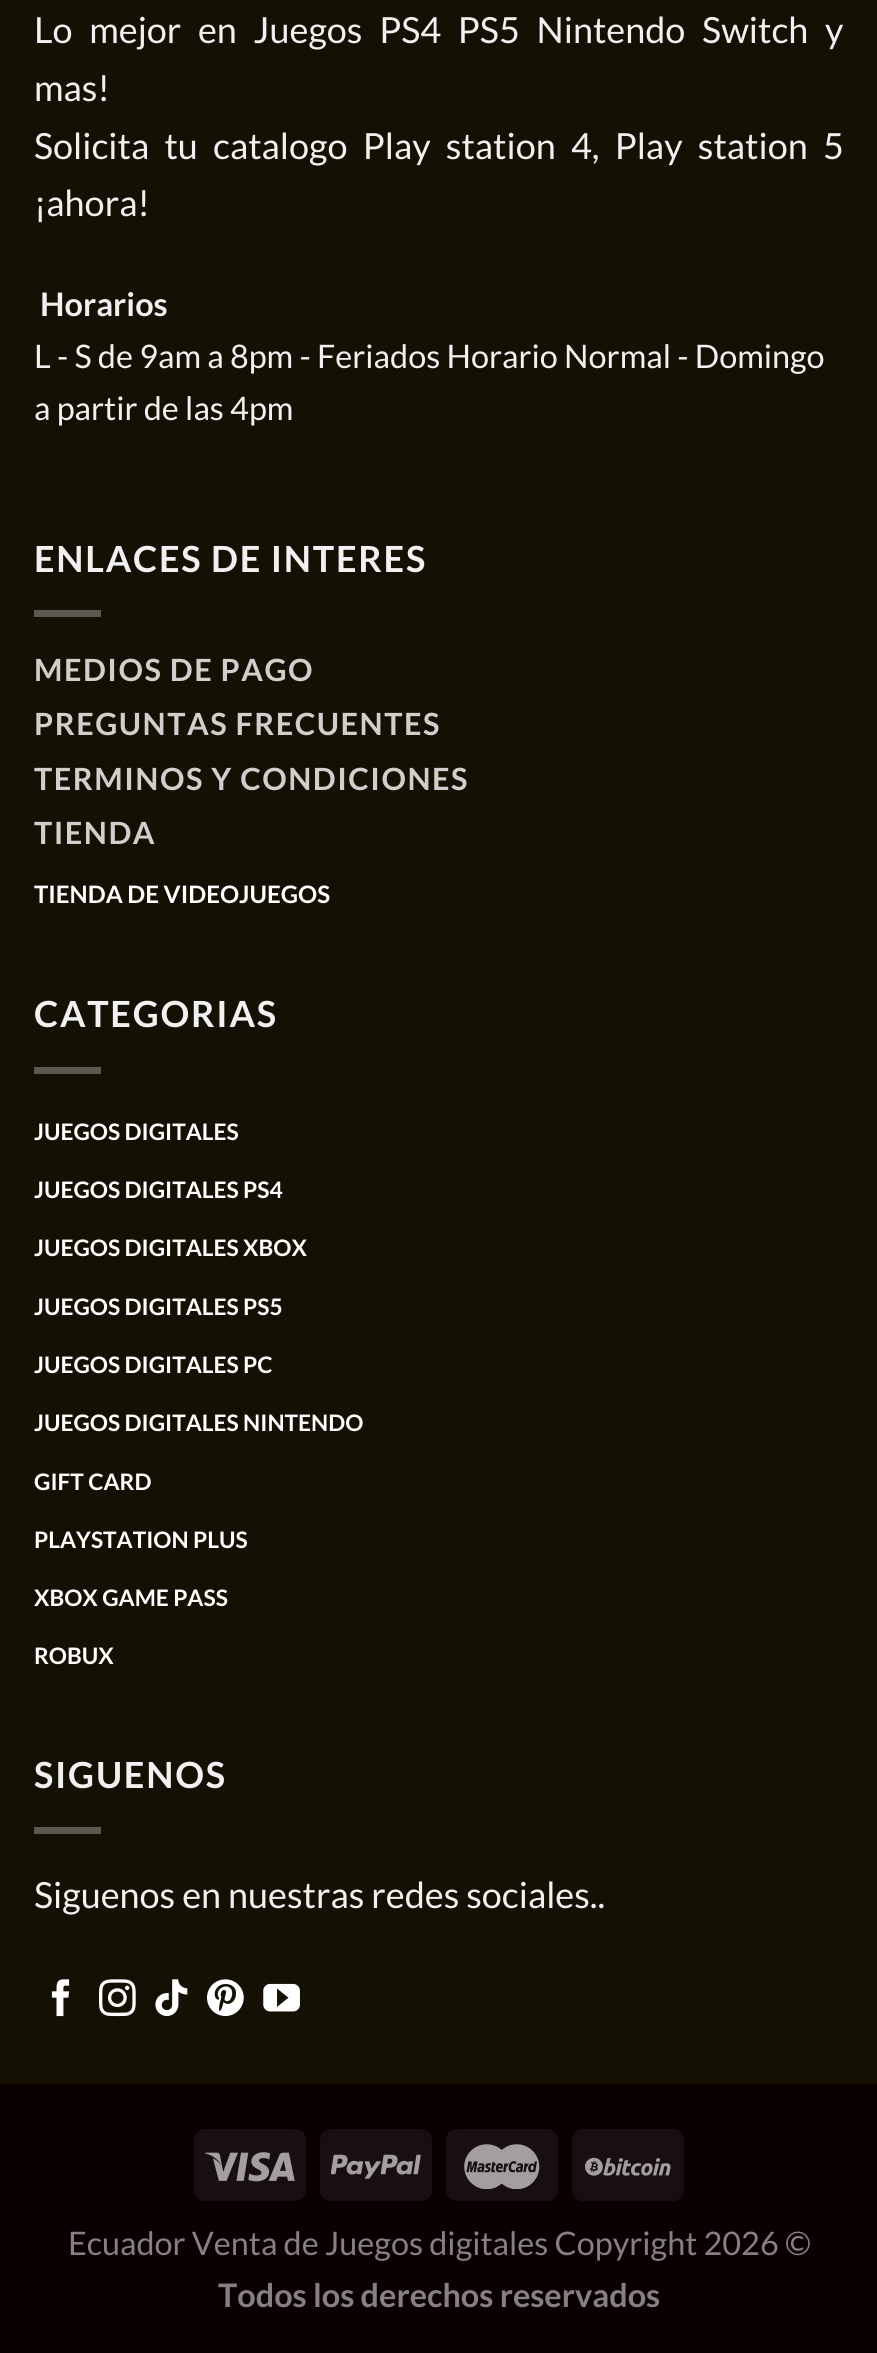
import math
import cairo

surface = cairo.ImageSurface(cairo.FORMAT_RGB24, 877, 2353)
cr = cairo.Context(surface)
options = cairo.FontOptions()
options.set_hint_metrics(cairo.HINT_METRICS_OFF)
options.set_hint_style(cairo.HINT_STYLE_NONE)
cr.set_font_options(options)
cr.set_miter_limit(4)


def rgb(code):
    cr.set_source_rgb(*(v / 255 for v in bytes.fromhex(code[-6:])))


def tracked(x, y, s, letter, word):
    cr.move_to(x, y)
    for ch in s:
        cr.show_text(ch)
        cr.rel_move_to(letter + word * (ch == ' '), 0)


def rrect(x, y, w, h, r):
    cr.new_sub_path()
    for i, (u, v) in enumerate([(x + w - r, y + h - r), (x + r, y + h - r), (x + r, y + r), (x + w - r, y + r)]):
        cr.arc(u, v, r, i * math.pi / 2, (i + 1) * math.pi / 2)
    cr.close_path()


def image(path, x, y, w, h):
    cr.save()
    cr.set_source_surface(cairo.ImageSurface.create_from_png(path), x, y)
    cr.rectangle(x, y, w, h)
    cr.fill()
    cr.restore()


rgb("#141104")
cr.paint()
for x, y, w, h, color in [
    (34, 610, 67, 7, "#5b584f"),
    (34, 1067, 67, 7, "#5b584f"),
    (34, 1827, 67, 7, "#5b584f"),
]:
    rgb(color)
    cr.rectangle(x, y, w, h)
    cr.fill()
image("img/1.png", 51, 1979, 19, 38)
image("img/2.png", 99, 1979, 37, 38)
image("img/3.png", 155, 1979, 33, 38)
image("img/4.png", 207, 1979, 37, 38)
image("img/5.png", 263, 1983, 37, 29)
rgb("#0a0002")
cr.rectangle(0, 2084, 877, 269)
cr.fill()
rgb("#190f11")
rrect(194, 2129, 112, 72, 11)
cr.fill()
image("img/6.png", 205, 2152, 90, 30)
rrect(320, 2129, 112, 72, 11)
cr.fill()
image("img/7.png", 331, 2154, 90, 25)
rrect(446, 2129, 112, 72, 11)
cr.fill()
image("img/8.png", 464, 2144, 76, 45)
rrect(572, 2129, 112, 72, 11)
cr.fill()
image("img/9.png", 585, 2157, 86, 19)
cr.select_font_face("Lato")
cr.set_font_size(36)
rgb("#f1f1f1")
tracked(34, 43, "Lo mejor en Juegos PS4 PS5 Nintendo Switch y", 0, 9.75)
cr.move_to(34, 101)
cr.show_text("mas!")
tracked(34, 159, "Solicita tu catalogo Play station 4, Play station 5", 0, 8.25)
cr.move_to(34, 216)
cr.show_text("¡ahora!")
cr.select_font_face("Lato", cairo.FONT_SLANT_NORMAL, cairo.FONT_WEIGHT_BOLD)
cr.set_font_size(32.4)
cr.move_to(40, 316)
cr.show_text("Horarios")
cr.select_font_face("Lato")
cr.move_to(34, 368)
cr.show_text("L - S de 9am a 8pm - Feriados Horario Normal - Domingo")
cr.move_to(34, 420)
cr.show_text("a partir de las 4pm")
cr.select_font_face("Lato", cairo.FONT_SLANT_NORMAL, cairo.FONT_WEIGHT_BOLD)
cr.set_font_size(36)
tracked(34, 572, "ENLACES DE INTERES", 1.75, 0)
cr.set_font_size(30.6)
rgb("#d0cfcd")
for x, y, s in [
    (34, 681, "MEDIOS DE PAGO"),
    (34, 735, "PREGUNTAS FRECUENTES"),
    (34, 790, "TERMINOS Y CONDICIONES"),
    (34, 844, "TIENDA"),
]:
    tracked(x, y, s, 1.5, 0)
cr.set_font_size(24)
rgb("#ffffff")
cr.move_to(34, 903)
cr.show_text("TIENDA DE VIDEOJUEGOS")
cr.set_font_size(36)
rgb("#f1f1f1")
tracked(34, 1027, "CATEGORIAS", 1.75, 0)
cr.set_font_size(22.7)
rgb("#ffffff")
for x, y, s in [
    (34, 1140, "JUEGOS DIGITALES"),
    (34, 1198, "JUEGOS DIGITALES PS4"),
    (34, 1256, "JUEGOS DIGITALES XBOX"),
    (34, 1315, "JUEGOS DIGITALES PS5"),
    (34, 1373, "JUEGOS DIGITALES PC"),
    (34, 1431, "JUEGOS DIGITALES NINTENDO"),
    (34, 1490, "GIFT CARD"),
    (34, 1548, "PLAYSTATION PLUS"),
    (34, 1606, "XBOX GAME PASS"),
    (34, 1664, "ROBUX"),
]:
    cr.move_to(x, y)
    cr.show_text(s)
cr.set_font_size(36)
rgb("#f1f1f1")
tracked(34, 1788, "SIGUENOS", 1.75, 0)
cr.select_font_face("Lato")
cr.move_to(34, 1908)
cr.show_text("Siguenos en nuestras redes sociales..")
cr.set_font_size(32.4)
rgb("#858081")
cr.move_to(68, 2255)
cr.show_text("Ecuador Venta de Juegos digitales Copyright 2026 ©")
cr.select_font_face("Lato", cairo.FONT_SLANT_NORMAL, cairo.FONT_WEIGHT_BOLD)
cr.move_to(218, 2307)
cr.show_text("Todos los derechos reservados")
surface.write_to_png("page.png")
